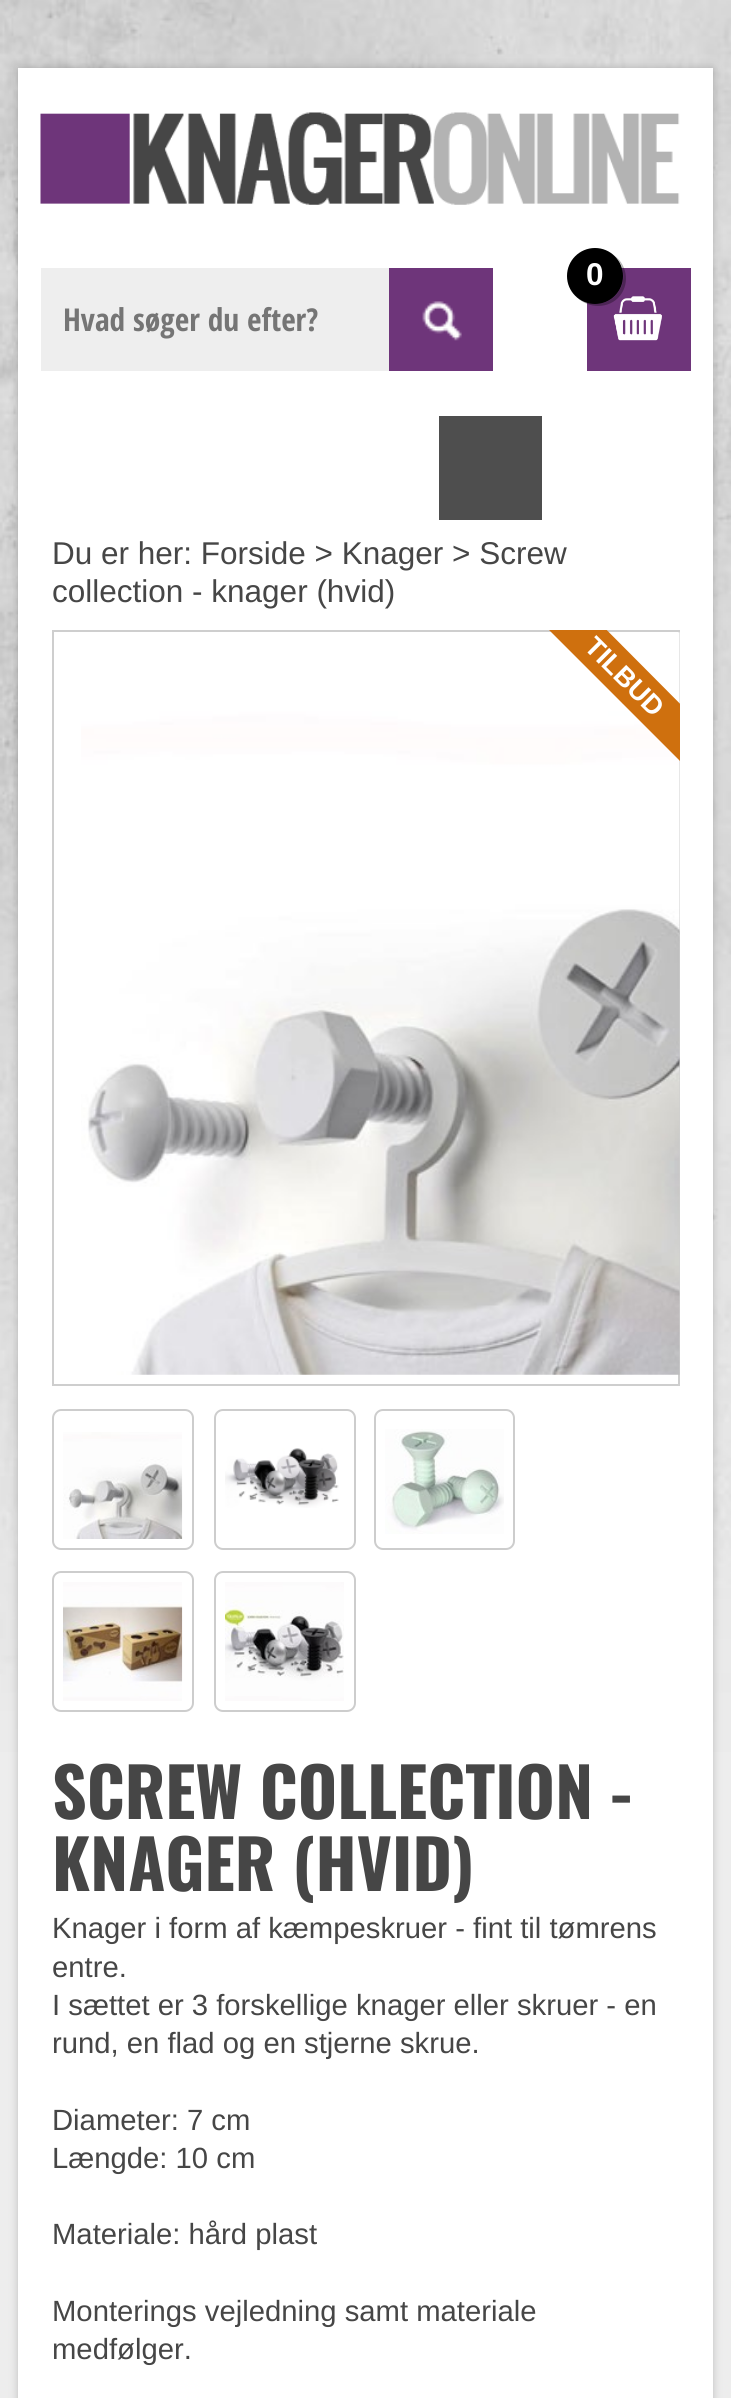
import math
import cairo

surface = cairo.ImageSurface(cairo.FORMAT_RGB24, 731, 2398)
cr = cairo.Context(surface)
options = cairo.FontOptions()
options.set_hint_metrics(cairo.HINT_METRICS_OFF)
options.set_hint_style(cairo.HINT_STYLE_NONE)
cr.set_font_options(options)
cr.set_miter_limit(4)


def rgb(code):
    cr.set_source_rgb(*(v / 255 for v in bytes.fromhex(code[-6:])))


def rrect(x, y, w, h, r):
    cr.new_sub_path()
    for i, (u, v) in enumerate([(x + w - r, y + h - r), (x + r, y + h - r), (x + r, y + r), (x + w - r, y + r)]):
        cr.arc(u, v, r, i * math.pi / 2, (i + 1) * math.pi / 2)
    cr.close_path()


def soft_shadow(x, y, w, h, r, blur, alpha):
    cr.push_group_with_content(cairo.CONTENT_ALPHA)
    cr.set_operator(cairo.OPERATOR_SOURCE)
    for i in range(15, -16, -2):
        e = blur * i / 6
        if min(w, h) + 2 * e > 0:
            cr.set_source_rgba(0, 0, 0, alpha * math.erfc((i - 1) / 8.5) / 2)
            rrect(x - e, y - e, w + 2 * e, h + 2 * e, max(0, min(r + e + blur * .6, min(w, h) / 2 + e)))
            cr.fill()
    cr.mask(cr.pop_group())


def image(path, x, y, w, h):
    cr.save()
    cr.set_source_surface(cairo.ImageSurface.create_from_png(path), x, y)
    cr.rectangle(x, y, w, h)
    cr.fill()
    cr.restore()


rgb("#ededed")
cr.paint()
image("img/1.png", 0, 0, 731, 1752)
rgb("#000000")
soft_shadow(18, 68, 695, 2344, 0, 4.5, 0.2)
rgb("#ffffff")
cr.rectangle(18, 68, 695, 2330)
cr.fill()
image("img/2.png", 40, 112, 640, 93)
rgb("#6e357a")
cr.rectangle(587, 268, 104, 103)
cr.fill()
image("img/3.png", 613, 296, 49, 45)
cr.set_source_rgba(0, 0, 0, 0.3)
cr.new_path()
cr.move_to(575, 295)
cr.curve_to(585, 308, 606, 310, 618, 298)
cr.curve_to(630, 286, 628, 266, 615, 256)
cr.curve_to(626, 267, 626, 285, 615, 296)
cr.curve_to(604, 307, 586, 306, 575, 295)
cr.close_path()
cr.fill()
rgb("#000000")
cr.arc(595, 276, 28, 0, 2 * math.pi)
cr.fill()
rgb("#eeeeee")
cr.rectangle(41, 268, 348, 103)
cr.fill()
rgb("#6e357a")
cr.rectangle(389, 268, 104, 103)
cr.fill()
image("img/4.png", 422, 301, 40, 40)
rgb("#4e4e4e")
cr.rectangle(439, 416, 103, 104)
cr.fill()
cr.rectangle(53, 631, 626, 754)
rgb("#cecece")
cr.stroke()
image("img/5.png", 81, 632, 599, 743)
cr.save()
cr.rectangle(52, 630, 628, 1103)
cr.clip()
rgb("#cf700e")
cr.new_path()
cr.move_to(552, 575)
cr.line_to(725, 749)
cr.line_to(696, 777)
cr.line_to(523, 604)
cr.close_path()
cr.fill()
cr.restore()
rrect(53, 1410, 140, 139, 8)
rgb("#cdcdcd")
cr.stroke()
image("img/6.png", 63, 1432, 120, 107)
rrect(215, 1410, 140, 139, 8)
cr.stroke()
image("img/7.png", 225, 1448, 114, 60)
rrect(375, 1410, 139, 139, 8)
cr.stroke()
image("img/8.png", 385, 1429, 119, 105)
rrect(53, 1572, 140, 139, 8)
cr.stroke()
image("img/9.png", 63, 1582, 120, 119)
rrect(215, 1572, 140, 139, 8)
cr.stroke()
image("img/10.png", 225, 1582, 119, 119)
cr.select_font_face("Liberation Sans", cairo.FONT_SLANT_NORMAL, cairo.FONT_WEIGHT_BOLD)
cr.set_font_size(31.5)
rgb("#ffffff")
cr.move_to(586, 285)
cr.show_text("0")
cr.select_font_face("Open Sans Condensed", cairo.FONT_SLANT_NORMAL, cairo.FONT_WEIGHT_BOLD)
rgb("#757575")
cr.move_to(63, 331)
cr.show_text("Hvad søger du efter?")
cr.select_font_face("Liberation Sans")
rgb("#464646")
cr.move_to(52, 564)
cr.show_text("Du er her: Forside > Knager > Screw")
cr.move_to(52, 602)
cr.show_text("collection - knager (hvid)")
cr.select_font_face("Liberation Sans", cairo.FONT_SLANT_NORMAL, cairo.FONT_WEIGHT_BOLD)
cr.set_font_size(27)
rgb("#ffffff")
cr.save()
cr.translate(583, 648)
cr.rotate(45 * math.pi / 180)
cr.move_to(0, 0)
cr.show_text("TILBUD")
cr.restore()
cr.select_font_face("Oswald", cairo.FONT_SLANT_NORMAL, cairo.FONT_WEIGHT_BOLD)
cr.set_font_size(67.5)
rgb("#464646")
cr.move_to(52, 1819)
cr.show_text("SCREW COLLECTION -")
cr.move_to(52, 1891)
cr.show_text("KNAGER (HVID)")
cr.select_font_face("Liberation Sans")
cr.set_font_size(29.25)
for x, y, s in [
    (52, 1938, "Knager i form af kæmpeskruer - fint til tømrens"),
    (52, 1977, "entre."),
    (52, 2015, "I sættet er 3 forskellige knager eller skruer - en"),
    (52, 2053, "rund, en flad og en stjerne skrue."),
    (52, 2130, "Diameter: 7 cm"),
    (52, 2168, "Længde: 10 cm"),
    (52, 2244, "Materiale: hård plast"),
    (52, 2321, "Monterings vejledning samt materiale"),
    (52, 2359, "medfølger."),
]:
    cr.move_to(x, y)
    cr.show_text(s)
surface.write_to_png("page.png")
